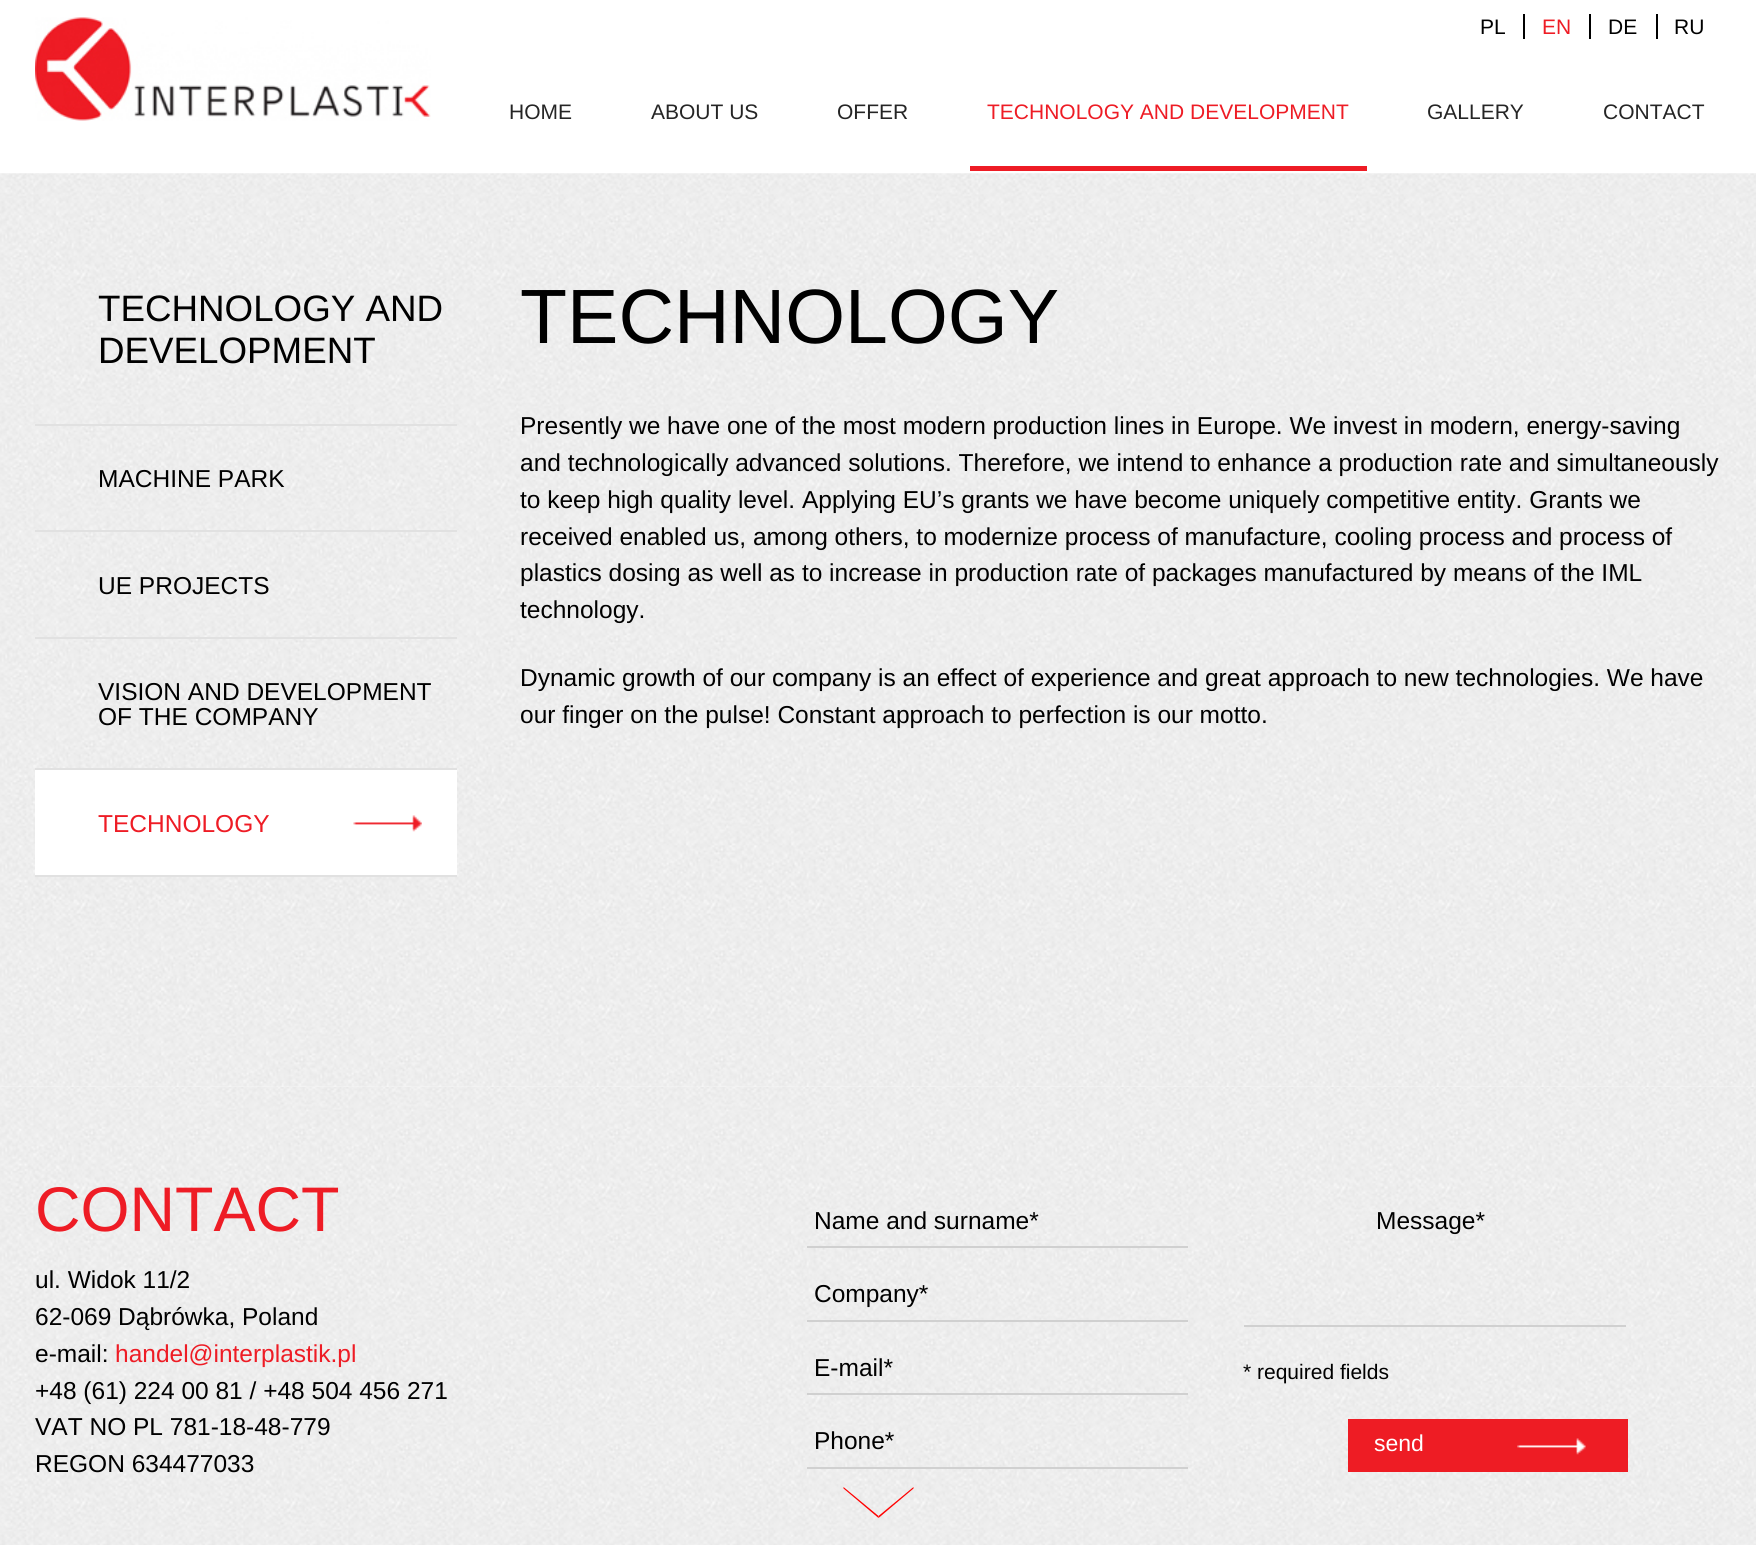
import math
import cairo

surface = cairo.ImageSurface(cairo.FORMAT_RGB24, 1756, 1545)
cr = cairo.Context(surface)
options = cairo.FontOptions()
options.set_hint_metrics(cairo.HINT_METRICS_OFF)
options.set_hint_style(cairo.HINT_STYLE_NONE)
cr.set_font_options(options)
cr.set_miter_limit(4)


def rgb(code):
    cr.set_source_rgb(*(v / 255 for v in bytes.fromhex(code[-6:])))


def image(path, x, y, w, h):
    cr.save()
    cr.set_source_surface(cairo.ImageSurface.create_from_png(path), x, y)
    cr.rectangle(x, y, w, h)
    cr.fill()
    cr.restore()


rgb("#ffffff")
cr.paint()
image("img/1.png", 35, 17, 396, 104)
for x, y, w, h, color in [
    (1523, 14, 2, 25, "#000000"),
    (1589, 14, 2, 25, "#000000"),
    (1656, 14, 2, 25, "#000000"),
    (970, 166, 397, 5, "#ee1c25"),
]:
    rgb(color)
    cr.rectangle(x, y, w, h)
    cr.fill()
image("img/2.png", 0, 173, 1756, 914)
for x, y, w, h, color in [
    (35, 424, 422, 2, "#e1e1e1"),
    (35, 530, 422, 2, "#e1e1e1"),
    (35, 637, 422, 2, "#e1e1e1"),
    (35, 768, 422, 2, "#e1e1e1"),
    (35, 875, 422, 2, "#e1e1e1"),
    (35, 770, 422, 105, "#ffffff"),
]:
    rgb(color)
    cr.rectangle(x, y, w, h)
    cr.fill()
image("img/3.png", 353, 815, 69, 17)
image("img/4.png", 0, 1087, 1756, 458)
for x, y, w, h, color in [
    (807, 1246, 381, 2, "#d0d0d0"),
    (807, 1320, 381, 2, "#d0d0d0"),
    (807, 1393, 381, 2, "#d0d0d0"),
    (807, 1467, 381, 2, "#d0d0d0"),
    (1244, 1325, 382, 2, "#d0d0d0"),
    (1348, 1419, 280, 53, "#ee1c24"),
]:
    rgb(color)
    cr.rectangle(x, y, w, h)
    cr.fill()
image("img/5.png", 1517, 1438, 69, 17)
rgb("#ff0000")
cr.new_path()
cr.move_to(843.5, 1487)
cr.line_to(878.5, 1516)
cr.line_to(878.5, 1518)
cr.line_to(843.5, 1488.5)
cr.close_path()
cr.fill()
cr.new_path()
cr.move_to(878.5, 1516)
cr.line_to(913.5, 1487)
cr.line_to(913.5, 1488.5)
cr.line_to(878.5, 1518)
cr.close_path()
cr.fill()
cr.select_font_face("Liberation Sans")
cr.set_font_size(21)
rgb("#000000")
cr.move_to(1480, 34)
cr.show_text("PL")
rgb("#ee1c25")
cr.move_to(1542, 34)
cr.show_text("EN")
rgb("#000000")
cr.move_to(1608, 34)
cr.show_text("DE")
cr.move_to(1674, 34)
cr.show_text("RU")
rgb("#252525")
for x, y, s in [
    (509, 119, "HOME"),
    (651, 119, "ABOUT US"),
    (837, 119, "OFFER"),
]:
    cr.move_to(x, y)
    cr.show_text(s)
rgb("#ee1c25")
cr.move_to(987, 119)
cr.show_text("TECHNOLOGY AND DEVELOPMENT")
rgb("#252525")
cr.move_to(1427, 119)
cr.show_text("GALLERY")
cr.move_to(1603, 119)
cr.show_text("CONTACT")
cr.set_font_size(36.75)
rgb("#000000")
cr.move_to(98, 321)
cr.show_text("TECHNOLOGY AND")
cr.move_to(98, 363)
cr.show_text("DEVELOPMENT")
cr.set_font_size(24.5)
for x, y, s in [
    (98, 487, "MACHINE PARK"),
    (98, 594, "UE PROJECTS"),
    (98, 700, "VISION AND DEVELOPMENT"),
    (98, 725, "OF THE COMPANY"),
]:
    cr.move_to(x, y)
    cr.show_text(s)
rgb("#ee1c25")
cr.move_to(98, 832)
cr.show_text("TECHNOLOGY")
cr.set_font_size(77)
rgb("#000000")
cr.move_to(520, 343)
cr.show_text("TECHNOLOGY")
cr.set_font_size(24.5)
for x, y, s in [
    (520, 434, "Presently we have one of the most modern production lines in Europe. We invest in modern, energy-saving"),
    (520, 471, "and technologically advanced solutions. Therefore, we intend to enhance a production rate and simultaneously"),
    (520, 508, "to keep high quality level. Applying EU’s grants we have become uniquely competitive entity. Grants we"),
    (520, 545, "received enabled us, among others, to modernize process of manufacture, cooling process and process of"),
    (520, 581, "plastics dosing as well as to increase in production rate of packages manufactured by means of the IML"),
    (520, 618, "technology."),
    (520, 686, "Dynamic growth of our company is an effect of experience and great approach to new technologies. We have"),
    (520, 723, "our finger on the pulse! Constant approach to perfection is our motto."),
]:
    cr.move_to(x, y)
    cr.show_text(s)
cr.set_font_size(63)
rgb("#ee1c25")
cr.move_to(35, 1231)
cr.show_text("CONTACT")
cr.set_font_size(24.5)
rgb("#000000")
for x, y, s in [
    (35, 1288, "ul. Widok 11/2"),
    (35, 1325, "62-069 Dąbrówka, Poland"),
    (35, 1362, "e-mail:"),
]:
    cr.move_to(x, y)
    cr.show_text(s)
rgb("#ee1c25")
cr.move_to(115, 1362)
cr.show_text("handel@interplastik.pl")
rgb("#000000")
for x, y, s in [
    (35, 1399, "+48 (61) 224 00 81 / +48 504 456 271"),
    (35, 1435, "VAT NO PL 781-18-48-779"),
    (35, 1472, "REGON 634477033"),
    (814, 1229, "Name and surname*"),
    (814, 1302, "Company*"),
    (814, 1376, "E-mail*"),
    (814, 1449, "Phone*"),
    (1376, 1229, "Message*"),
]:
    cr.move_to(x, y)
    cr.show_text(s)
cr.set_font_size(21)
cr.move_to(1243, 1379)
cr.show_text("* required fields")
cr.set_font_size(23)
rgb("#ffffff")
cr.move_to(1374, 1451)
cr.show_text("send")
surface.write_to_png("page.png")
